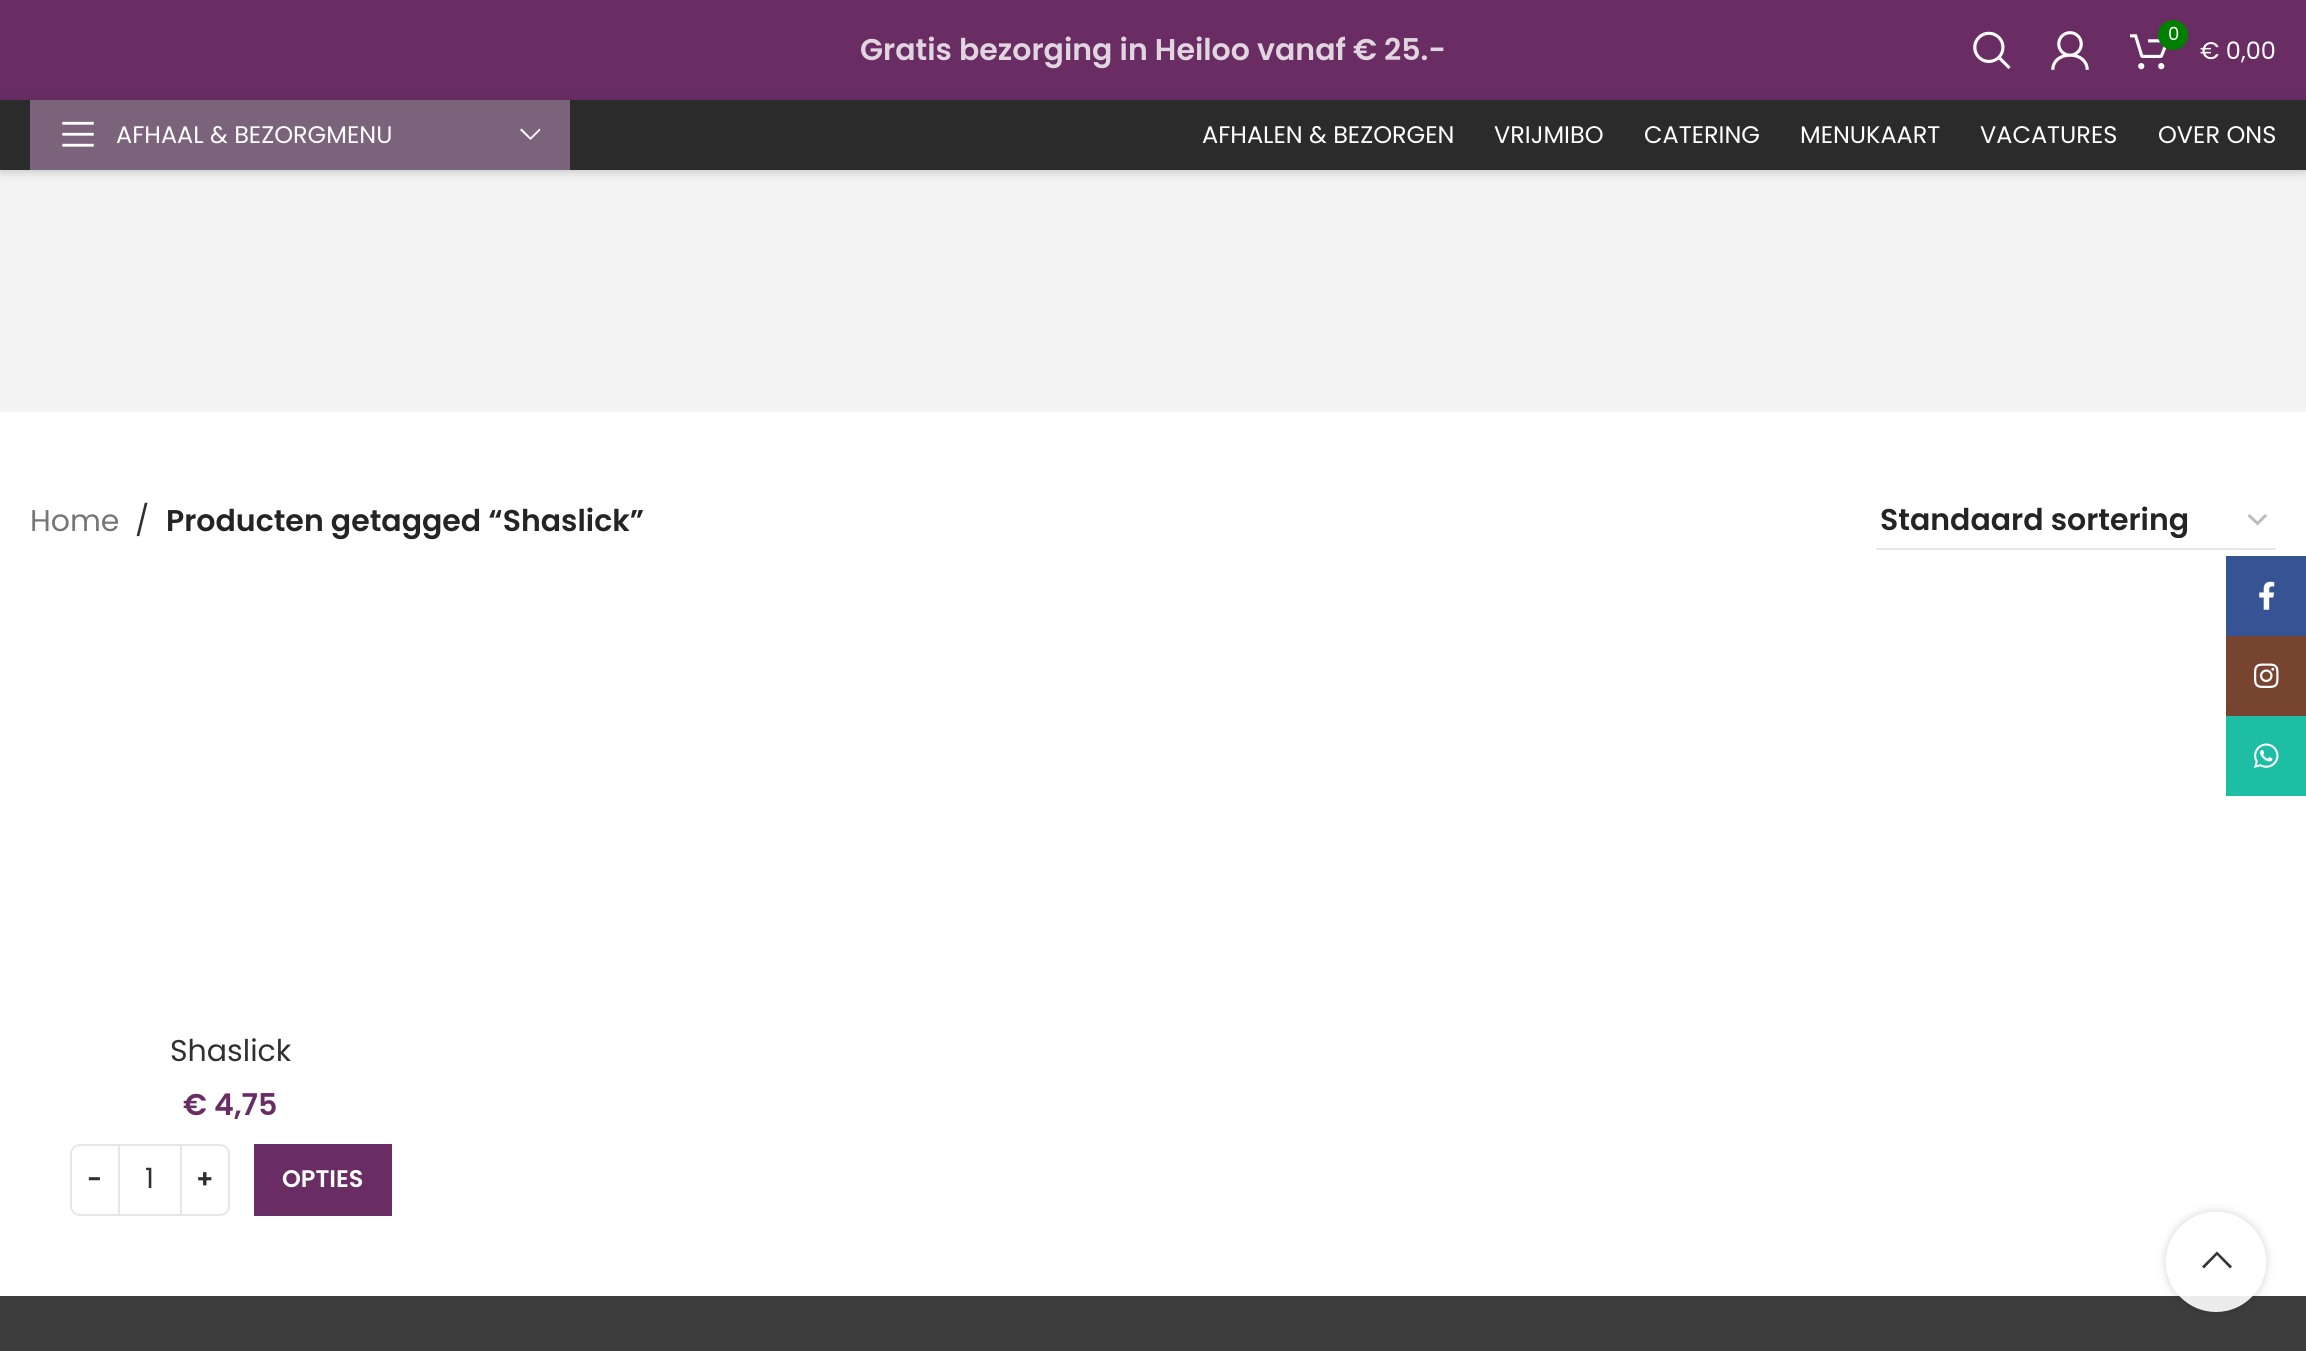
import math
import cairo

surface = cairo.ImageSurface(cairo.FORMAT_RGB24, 2306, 1351)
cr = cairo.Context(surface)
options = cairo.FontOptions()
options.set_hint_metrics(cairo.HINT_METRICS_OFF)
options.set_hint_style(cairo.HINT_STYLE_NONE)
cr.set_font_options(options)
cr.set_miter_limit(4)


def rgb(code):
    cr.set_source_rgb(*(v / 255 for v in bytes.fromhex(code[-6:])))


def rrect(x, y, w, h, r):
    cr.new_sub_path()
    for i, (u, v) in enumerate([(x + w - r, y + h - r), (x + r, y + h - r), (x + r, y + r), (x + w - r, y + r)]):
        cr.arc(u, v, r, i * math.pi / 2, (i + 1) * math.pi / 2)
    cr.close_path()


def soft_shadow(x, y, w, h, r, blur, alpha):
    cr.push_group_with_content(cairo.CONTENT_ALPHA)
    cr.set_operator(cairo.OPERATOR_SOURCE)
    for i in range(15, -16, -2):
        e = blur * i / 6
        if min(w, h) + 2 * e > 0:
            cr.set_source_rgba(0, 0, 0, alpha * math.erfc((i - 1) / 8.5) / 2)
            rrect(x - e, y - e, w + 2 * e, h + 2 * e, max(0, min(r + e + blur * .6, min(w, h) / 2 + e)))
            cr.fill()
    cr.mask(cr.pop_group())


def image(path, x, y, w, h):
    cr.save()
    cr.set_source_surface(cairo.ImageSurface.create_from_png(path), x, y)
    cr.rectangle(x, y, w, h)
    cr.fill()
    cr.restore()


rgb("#ffffff")
cr.paint()
rgb("#f4f4f4")
cr.rectangle(0, 170, 2306, 242)
cr.fill()
rgb("#000000")
soft_shadow(0, 2, 2306, 170, 0, 3, 0.1)
rgb("#692d63")
cr.rectangle(0, 0, 2306, 100)
cr.fill()
image("img/1.png", 1973, 31, 38, 38)
image("img/2.png", 2051, 31, 38, 39)
image("img/3.png", 2130, 34, 37, 36)
rgb("#008000")
cr.arc(2173, 35, 15, 0, 2 * math.pi)
cr.fill()
rgb("#000000")
soft_shadow(0, 102, 2306, 70, 0, 8, 0.1)
rgb("#2b2b2b")
cr.rectangle(0, 100, 2306, 70)
cr.fill()
rgb("#7c637c")
cr.rectangle(30, 100, 540, 70)
cr.fill()
image("img/4.png", 62, 121, 32, 26)
rgb("#ffffff")
cr.new_path()
cr.move_to(539.5, 128.5)
cr.line_to(530.5, 137.5)
cr.line_to(521.5, 128.5)
cr.line_to(520, 130)
cr.line_to(530.5, 140)
cr.line_to(540.5, 130)
cr.close_path()
cr.fill()
cr.new_path()
cr.move_to(2248.5, 515)
cr.line_to(2257.5, 523.5)
cr.line_to(2266, 515)
rgb("#bbbbbb")
cr.set_line_width(2.9)
cr.stroke()
rgb("#e6e6e6")
cr.rectangle(1876, 548, 400, 2)
cr.fill()
cr.new_path()
cr.move_to(80, 1145)
cr.line_to(119, 1145)
cr.line_to(119, 1215)
cr.line_to(80, 1215)
cr.curve_to(75, 1215, 71, 1211, 71, 1206)
cr.line_to(71, 1154)
cr.curve_to(71, 1149, 75, 1145, 80, 1145)
cr.close_path()
cr.set_line_width(2)
cr.stroke()
cr.rectangle(120, 1144, 60, 2)
cr.fill()
cr.rectangle(120, 1214, 60, 2)
cr.fill()
cr.new_path()
cr.move_to(181, 1145)
cr.line_to(220, 1145)
cr.curve_to(225, 1145, 229, 1149, 229, 1154)
cr.line_to(229, 1206)
cr.curve_to(229, 1211, 225, 1215, 220, 1215)
cr.line_to(181, 1215)
cr.close_path()
cr.stroke()
for x, y, w, h, color in [
    (254, 1144, 138, 72, "#692d63"),
    (0, 1296, 2306, 55, "#3d3d3d"),
    (2226, 556, 80, 80, "#365493"),
]:
    rgb(color)
    cr.rectangle(x, y, w, h)
    cr.fill()
image("img/5.png", 2259, 581, 16, 29)
rgb("#774430")
cr.rectangle(2226, 636, 80, 80)
cr.fill()
image("img/6.png", 2254, 663, 25, 25)
rgb("#1ebea5")
cr.rectangle(2226, 716, 80, 80)
cr.fill()
image("img/7.png", 2254, 743, 25, 25)
cr.save()
cr.set_fill_rule(cairo.FILL_RULE_EVEN_ODD)
cr.new_path()
cr.move_to(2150, 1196)
cr.line_to(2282, 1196)
cr.line_to(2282, 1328)
cr.line_to(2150, 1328)
cr.close_path()
cr.move_to(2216, 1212)
cr.curve_to(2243.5, 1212, 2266, 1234.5, 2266, 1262)
cr.curve_to(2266, 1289.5, 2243.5, 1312, 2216, 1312)
cr.curve_to(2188.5, 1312, 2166, 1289.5, 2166, 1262)
cr.curve_to(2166, 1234.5, 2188.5, 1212, 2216, 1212)
cr.close_path()
cr.clip()
rgb("#000000")
soft_shadow(2166, 1212, 100, 100, 50, 5, 0.17)
cr.restore()
cr.set_source_rgba(1, 1, 1, 0.9)
cr.arc(2216, 1262, 50, 0, 2 * math.pi)
cr.fill()
rgb("#333333")
cr.new_path()
cr.move_to(2230, 1268.5)
cr.line_to(2232, 1266.5)
cr.line_to(2217, 1251.5)
cr.line_to(2202, 1266.5)
cr.line_to(2204, 1268.5)
cr.line_to(2217, 1255)
cr.close_path()
cr.fill()
cr.select_font_face("Poppins SemiBold")
cr.set_font_size(30)
rgb("#e1d5e0")
cr.move_to(860, 60)
cr.show_text("Gratis bezorging in Heiloo vanaf € 25.-")
cr.select_font_face("Poppins")
cr.set_font_size(18)
rgb("#ffffff")
cr.move_to(2168, 40)
cr.show_text("0")
cr.set_font_size(24)
for x, y, s in [
    (2200, 59, "€ 0,00"),
    (116, 143, "AFHAAL & BEZORGMENU"),
    (1202, 143, "AFHALEN & BEZORGEN"),
    (1494, 143, "VRIJMIBO"),
    (1644, 143, "CATERING"),
    (1800, 143, "MENUKAART"),
    (1980, 143, "VACATURES"),
    (2158, 143, "OVER ONS"),
]:
    cr.move_to(x, y)
    cr.show_text(s)
cr.set_font_size(30)
rgb("#767676")
cr.move_to(30, 531)
cr.show_text("Home")
rgb("#303030")
cr.move_to(135, 531)
cr.show_text("/")
cr.select_font_face("Poppins SemiBold")
rgb("#242424")
cr.move_to(166, 531)
cr.show_text("Producten getagged “Shaslick”")
cr.save()
cr.rectangle(1880, 502, 356, 36)
cr.clip()
cr.move_to(1880, 530)
cr.show_text("Standaard sortering")
cr.restore()
cr.select_font_face("Poppins")
rgb("#303030")
cr.move_to(170, 1061)
cr.show_text("Shaslick")
cr.select_font_face("Poppins SemiBold")
rgb("#692d63")
cr.move_to(183, 1115)
cr.show_text("€ 4,75")
cr.set_font_size(26)
rgb("#303030")
cr.move_to(87, 1188)
cr.show_text("-")
cr.select_font_face("Poppins")
cr.set_font_size(28)
cr.move_to(145, 1188)
cr.show_text("1")
cr.select_font_face("Poppins SemiBold")
cr.set_font_size(26)
cr.move_to(196, 1188)
cr.show_text("+")
cr.set_font_size(24)
rgb("#ffffff")
cr.move_to(282, 1187)
cr.show_text("OPTIES")
surface.write_to_png("page.png")
